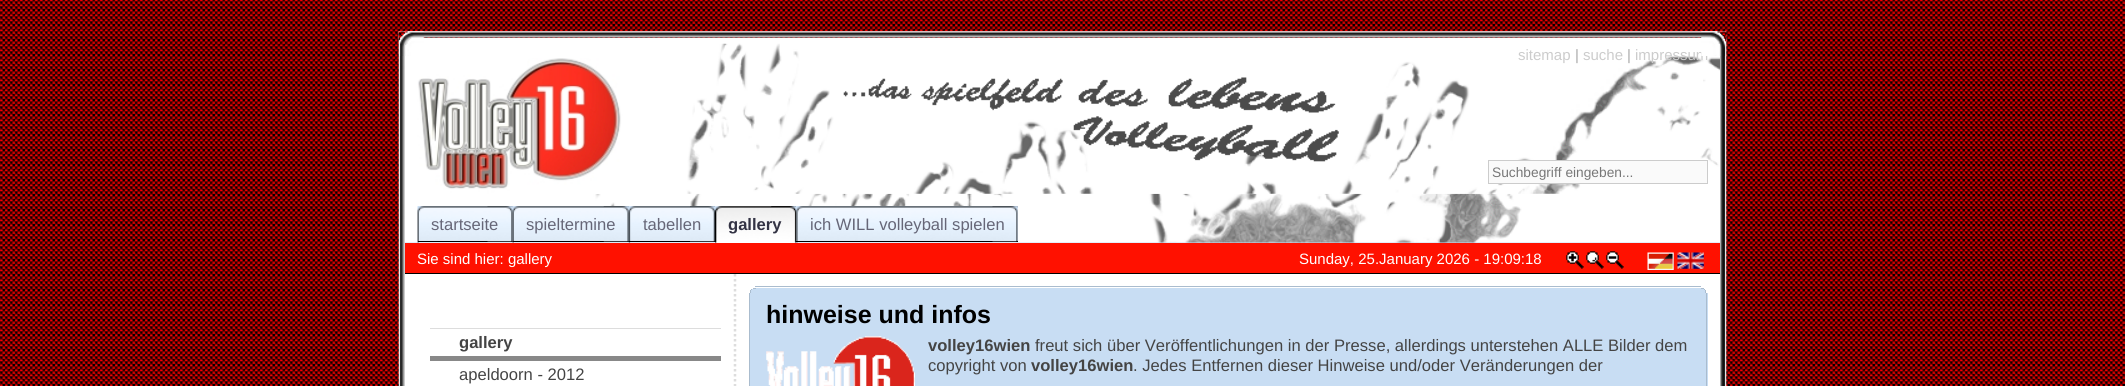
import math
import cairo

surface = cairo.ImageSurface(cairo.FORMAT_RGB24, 2125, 386)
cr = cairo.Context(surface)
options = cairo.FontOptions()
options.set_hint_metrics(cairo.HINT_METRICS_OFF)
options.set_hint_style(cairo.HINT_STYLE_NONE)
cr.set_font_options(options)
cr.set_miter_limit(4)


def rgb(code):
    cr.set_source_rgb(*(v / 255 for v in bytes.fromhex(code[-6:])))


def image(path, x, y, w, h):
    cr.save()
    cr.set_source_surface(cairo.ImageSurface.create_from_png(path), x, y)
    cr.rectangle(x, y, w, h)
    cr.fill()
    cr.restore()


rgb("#ffffff")
cr.paint()
image("img/1.png", 0, 0, 2125, 386)
image("img/2.png", 398, 31, 7, 355)
image("img/6.png", 1720, 37, 7, 349)
image("img/3.png", 398, 31, 1329, 7)
rgb("#ffffff")
cr.rectangle(405, 38, 1315, 348)
cr.fill()
rgb("#c8ddf3")
cr.rectangle(405, 242, 1315, 1)
cr.fill()
image("img/10.png", 405, 193, 1315, 50)
image("img/7.png", 405, 43, 1315, 151)
image("img/4.png", 398, 31, 26, 25)
image("img/8.png", 417, 58, 206, 136)
image("img/9.png", 843, 77, 496, 85)
rgb("#fafafa")
cr.rectangle(1488.5, 160.5, 219, 23)
cr.fill_preserve()
rgb("#cccccc")
cr.set_line_width(1)
cr.stroke()
rgb("#e0ecf8")
cr.rectangle(418, 206, 297, 37)
cr.fill()
image("img/11.png", 417, 206, 96, 37)
rgb("#000000")
cr.rectangle(418, 241, 95, 1)
cr.fill()
image("img/12.png", 487, 206, 26, 36)
image("img/13.png", 512, 206, 117, 37)
cr.rectangle(513, 241, 116, 1)
cr.fill()
image("img/14.png", 603, 206, 26, 36)
image("img/15.png", 628, 206, 87, 37)
cr.rectangle(629, 241, 86, 1)
cr.fill()
image("img/16.png", 690, 206, 25, 36)
rgb("#ffffff")
cr.rectangle(715, 231, 81, 12)
cr.fill()
image("img/17.png", 715, 206, 81, 37)
image("img/18.png", 771, 206, 25, 37)
rgb("#e0ecf8")
cr.rectangle(796, 206, 222, 37)
cr.fill()
image("img/19.png", 796, 206, 222, 37)
rgb("#000000")
cr.rectangle(796, 241, 222, 1)
cr.fill()
image("img/20.png", 992, 206, 26, 36)
rgb("#ff1100")
cr.rectangle(405, 243, 1315, 30)
cr.fill()
rgb("#000000")
cr.rectangle(405, 273, 1315, 1)
cr.fill()
image("img/21.png", 1566, 251, 18, 18)
image("img/22.png", 1586, 251, 18, 18)
image("img/23.png", 1606, 251, 18, 18)
image("img/24.png", 1647, 252, 27, 18)
image("img/25.png", 1677, 252, 27, 17)
rgb("#dddddd")
cr.rectangle(430, 328, 291, 1)
cr.fill()
rgb("#888888")
cr.rectangle(430, 356, 291, 5)
cr.fill()
cr.new_path()
cr.move_to(735, 274)
cr.line_to(735, 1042.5)
rgb("#dddddd")
cr.set_line_width(2.5)
cr.set_dash([2.5, 2.5])
cr.stroke()
for x, y, w, h, color in [
    (755, 286, 946, 1, "#aabcce"),
    (753, 288, 951, 1, "#c8ddf3"),
    (1701, 288, 3, 1, "#aabcce"),
    (753, 288, 3, 1, "#aabcce"),
    (751, 289, 954, 1, "#c8ddf3"),
    (1704, 289, 1, 1, "#aabcce"),
    (751, 289, 1, 1, "#aabcce"),
    (750, 290, 956, 3, "#c8ddf3"),
    (1705, 290, 1, 3, "#aabcce"),
    (750, 290, 1, 3, "#aabcce"),
    (750, 293, 958, 93, "#c8ddf3"),
    (1706, 293, 1, 93, "#aabcce"),
    (749, 293, 1, 93, "#aabcce"),
]:
    rgb(color)
    cr.rectangle(x, y, w, h)
    cr.fill()
image("img/26.png", 766, 336, 149, 50)
cr.select_font_face("Liberation Sans")
cr.set_font_size(15)
rgb("#cccccc")
cr.move_to(1518, 60)
cr.show_text("sitemap")
rgb("#aaaaaa")
cr.move_to(1575, 60)
cr.show_text("|")
rgb("#cccccc")
cr.move_to(1583, 60)
cr.show_text("suche")
rgb("#aaaaaa")
cr.move_to(1627, 60)
cr.show_text("|")
rgb("#cccccc")
cr.move_to(1635, 60)
cr.show_text("impressum")
image("img/5.png", 1701, 31, 26, 25)
cr.set_font_size(13.75)
rgb("#777777")
cr.move_to(1492, 177)
cr.show_text("Suchbegriff eingeben...")
cr.set_font_size(16.6)
rgb("#666677")
for x, y, s in [
    (431, 230, "startseite"),
    (526, 230, "spieltermine"),
    (643, 230, "tabellen"),
]:
    cr.move_to(x, y)
    cr.show_text(s)
cr.select_font_face("Liberation Sans", cairo.FONT_SLANT_NORMAL, cairo.FONT_WEIGHT_BOLD)
rgb("#333344")
cr.move_to(728, 230)
cr.show_text("gallery")
cr.select_font_face("Liberation Sans")
rgb("#666677")
cr.move_to(810, 230)
cr.show_text("ich WILL volleyball spielen")
cr.set_font_size(15)
rgb("#ffffff")
cr.move_to(417, 264)
cr.show_text("Sie sind hier: gallery")
cr.move_to(1299, 264)
cr.show_text("Sunday, 25.January 2026 - 19:09:18")
cr.select_font_face("Liberation Sans", cairo.FONT_SLANT_NORMAL, cairo.FONT_WEIGHT_BOLD)
cr.set_font_size(16.6)
rgb("#444444")
cr.move_to(459, 348)
cr.show_text("gallery")
cr.select_font_face("Liberation Sans")
cr.move_to(459, 380)
cr.show_text("apeldoorn - 2012")
cr.select_font_face("Liberation Sans", cairo.FONT_SLANT_NORMAL, cairo.FONT_WEIGHT_BOLD)
cr.set_font_size(25)
rgb("#000000")
cr.move_to(766, 323)
cr.show_text("hinweise und infos")
cr.set_font_size(16.6)
rgb("#444444")
cr.move_to(928, 351)
cr.show_text("volley16wien")
cr.select_font_face("Liberation Sans")
cr.move_to(1035, 351)
cr.show_text("freut sich über Veröffentlichungen in der Presse, allerdings unterstehen ALLE Bilder dem")
cr.move_to(928, 371)
cr.show_text("copyright von")
cr.select_font_face("Liberation Sans", cairo.FONT_SLANT_NORMAL, cairo.FONT_WEIGHT_BOLD)
cr.move_to(1031, 371)
cr.show_text("volley16wien")
cr.select_font_face("Liberation Sans")
cr.move_to(1133, 371)
cr.show_text(". Jedes Entfernen dieser Hinweise und/oder Veränderungen der")
surface.write_to_png("page.png")
